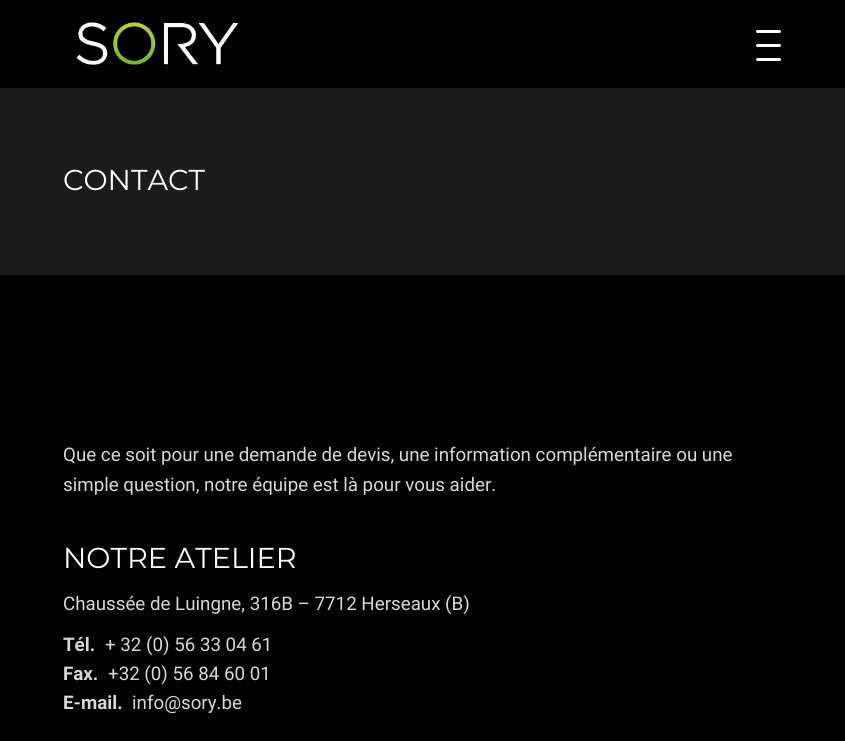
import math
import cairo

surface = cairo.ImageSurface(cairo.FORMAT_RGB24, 845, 741)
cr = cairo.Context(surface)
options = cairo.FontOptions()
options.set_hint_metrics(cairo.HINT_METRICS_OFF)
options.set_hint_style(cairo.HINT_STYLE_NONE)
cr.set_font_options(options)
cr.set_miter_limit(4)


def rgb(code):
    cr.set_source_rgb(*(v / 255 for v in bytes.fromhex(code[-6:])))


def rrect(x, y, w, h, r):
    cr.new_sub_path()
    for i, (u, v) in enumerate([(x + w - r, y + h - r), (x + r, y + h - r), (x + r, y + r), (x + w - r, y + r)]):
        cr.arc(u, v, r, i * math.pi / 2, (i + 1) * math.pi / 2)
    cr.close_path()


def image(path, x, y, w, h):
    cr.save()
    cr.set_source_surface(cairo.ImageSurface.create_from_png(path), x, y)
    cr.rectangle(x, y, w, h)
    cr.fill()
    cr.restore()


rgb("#000000")
cr.paint()
image("img/1.png", 76, 22, 162, 43)
rgb("#ffffff")
rrect(756, 30, 25, 3, 1.5)
cr.fill()
rrect(756, 44, 25, 3, 1.5)
cr.fill()
rrect(756, 58, 25, 3, 1.5)
cr.fill()
rgb("#1c1c1c")
cr.rectangle(0, 88, 845, 187)
cr.fill()
cr.select_font_face("Montserrat")
cr.set_font_size(28.75)
rgb("#ffffff")
cr.move_to(63, 190)
cr.show_text("CONTACT")
cr.select_font_face("Roboto")
cr.set_font_size(18.75)
rgb("#d8d8d8")
cr.move_to(63, 461)
cr.show_text("Que ce soit pour une demande de devis, une information complémentaire ou une")
cr.move_to(63, 491)
cr.show_text("simple question, notre équipe est là pour vous aider.")
cr.select_font_face("Montserrat")
cr.set_font_size(28.75)
rgb("#ffffff")
cr.move_to(63, 568)
cr.show_text("NOTRE ATELIER")
cr.select_font_face("Roboto")
cr.set_font_size(18.75)
rgb("#d8d8d8")
cr.move_to(63, 610)
cr.show_text("Chaussée de Luingne, 316B – 7712 Herseaux (B)")
cr.select_font_face("Roboto", cairo.FONT_SLANT_NORMAL, cairo.FONT_WEIGHT_BOLD)
cr.move_to(63, 651)
cr.show_text("Tél.")
cr.select_font_face("Roboto")
cr.move_to(105, 651)
cr.show_text("+ 32 (0) 56 33 04 61")
cr.select_font_face("Roboto", cairo.FONT_SLANT_NORMAL, cairo.FONT_WEIGHT_BOLD)
cr.move_to(63, 680)
cr.show_text("Fax.")
cr.select_font_face("Roboto")
cr.move_to(108, 680)
cr.show_text("+32 (0) 56 84 60 01")
cr.select_font_face("Roboto", cairo.FONT_SLANT_NORMAL, cairo.FONT_WEIGHT_BOLD)
cr.move_to(63, 709)
cr.show_text("E-mail.")
cr.select_font_face("Roboto")
cr.move_to(132, 709)
cr.show_text("info@sory.be")
surface.write_to_png("page.png")
